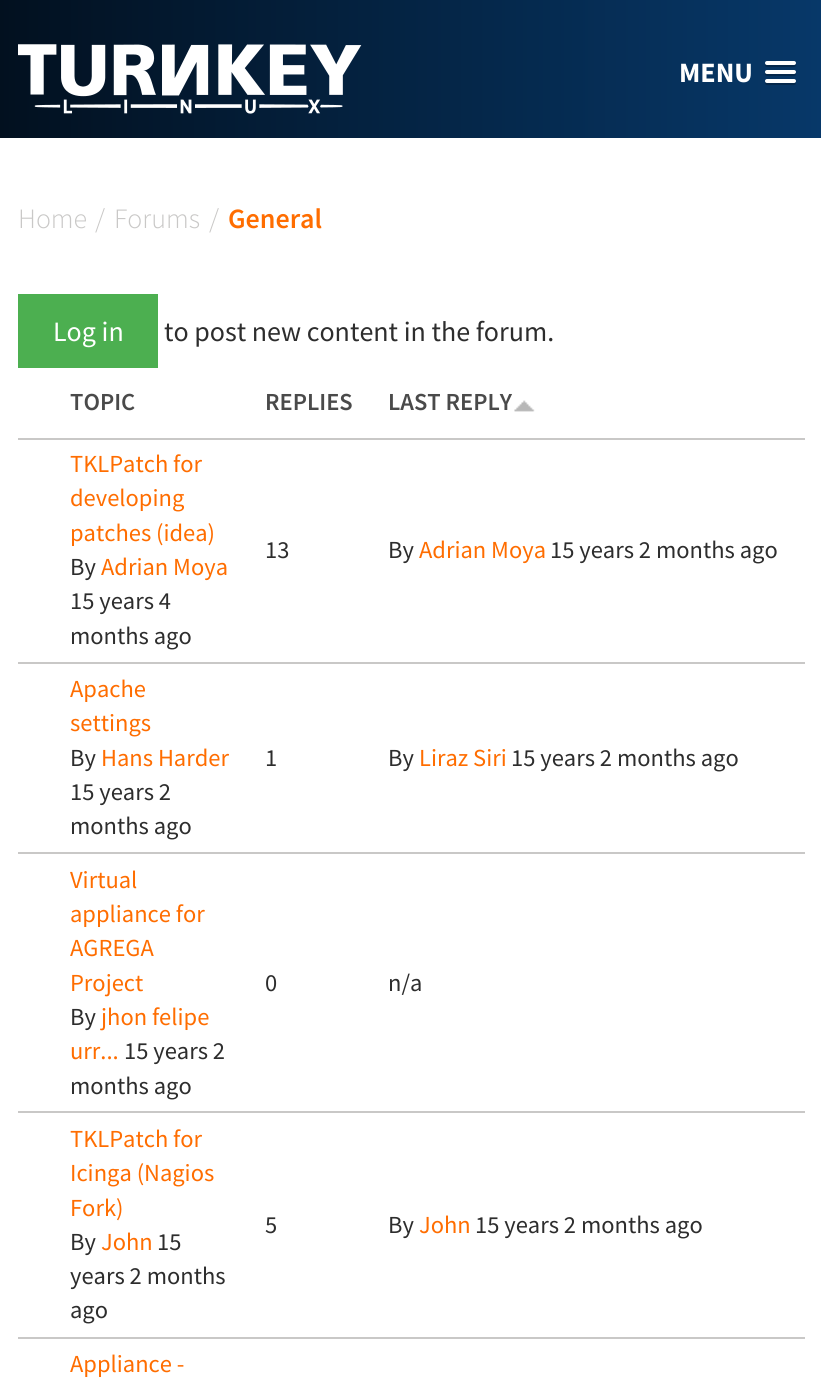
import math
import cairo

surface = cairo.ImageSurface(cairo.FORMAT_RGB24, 821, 1392)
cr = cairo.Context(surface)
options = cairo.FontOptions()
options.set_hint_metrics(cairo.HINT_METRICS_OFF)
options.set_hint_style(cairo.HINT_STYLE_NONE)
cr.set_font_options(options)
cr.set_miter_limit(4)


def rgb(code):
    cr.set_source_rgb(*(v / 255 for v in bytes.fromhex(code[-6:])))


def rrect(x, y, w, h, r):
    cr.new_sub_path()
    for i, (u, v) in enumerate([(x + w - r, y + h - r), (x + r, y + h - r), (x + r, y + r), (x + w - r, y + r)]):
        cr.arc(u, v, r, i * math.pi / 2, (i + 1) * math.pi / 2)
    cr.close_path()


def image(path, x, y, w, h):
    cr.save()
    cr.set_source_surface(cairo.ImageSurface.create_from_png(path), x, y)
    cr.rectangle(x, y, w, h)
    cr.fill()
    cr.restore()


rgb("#ffffff")
cr.paint()
gradient = cairo.LinearGradient(0, 69, 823, 69)
gradient.add_color_stop_rgba(0, 0.008, 0.063, 0.122, 1)
gradient.add_color_stop_rgba(1, 0.027, 0.22, 0.412, 1)
cr.set_source(gradient)
cr.rectangle(0, 0, 821, 138)
cr.fill()
image("img/1.png", 18, 44, 344, 70)
cr.set_source_rgba(0, 0, 0, 0.25)
cr.new_path()
cr.move_to(765, 64)
cr.curve_to(763.5, 68, 770.5, 67, 771.5, 67)
cr.line_to(789.5, 67)
cr.curve_to(790.5, 67, 797.5, 68, 796, 64)
cr.line_to(794.5, 64.5)
cr.line_to(766.5, 64.5)
cr.close_path()
cr.fill()
rgb("#ffffff")
rrect(765, 61, 31, 4, 2)
cr.fill()
cr.set_source_rgba(0, 0, 0, 0.25)
cr.new_path()
cr.move_to(765.5, 73)
cr.curve_to(763, 77, 771, 76, 771.5, 76)
cr.line_to(789.5, 76)
cr.curve_to(790, 76, 798, 77, 795.5, 73)
cr.line_to(794.5, 73.5)
cr.line_to(766.5, 73.5)
cr.close_path()
cr.fill()
rgb("#ffffff")
rrect(765, 70, 31, 4, 2)
cr.fill()
cr.set_source_rgba(0, 0, 0, 0.25)
cr.new_path()
cr.move_to(765.5, 82)
cr.line_to(765, 83.5)
cr.curve_to(765.5, 86, 770.5, 85, 771.5, 85)
cr.line_to(789.5, 85)
cr.curve_to(790.5, 85, 795.5, 86, 796, 83.5)
cr.line_to(795.5, 82)
cr.curve_to(794.5, 82.5, 766.5, 82.5, 765.5, 82)
cr.close_path()
cr.fill()
rgb("#ffffff")
rrect(765, 79, 31, 4, 2)
cr.fill()
rgb("#4caf50")
cr.rectangle(18, 294, 140, 74)
cr.fill()
image("img/2.png", 514, 400, 21, 12)
for x, y, w, h, color in [
    (18, 438, 787, 2, "#c9c8c7"),
    (18, 662, 787, 2, "#c9c8c7"),
    (18, 852, 787, 2, "#c9c8c7"),
    (18, 1111, 787, 2, "#c9c8c7"),
    (18, 1337, 787, 2, "#c9c8c7"),
]:
    rgb(color)
    cr.rectangle(x, y, w, h)
    cr.fill()
cr.select_font_face("Source Sans Pro", cairo.FONT_SLANT_NORMAL, cairo.FONT_WEIGHT_BOLD)
cr.set_font_size(28)
rgb("#ffffff")
cr.move_to(679, 82)
cr.show_text("MENU")
cr.select_font_face("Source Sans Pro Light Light")
rgb("#c9c8c7")
for x, y, s in [
    (18, 228, "Home"),
    (95, 228, "/"),
    (114, 228, "Forums"),
    (209, 228, "/"),
]:
    cr.move_to(x, y)
    cr.show_text(s)
cr.select_font_face("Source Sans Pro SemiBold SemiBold")
rgb("#ff6d00")
cr.move_to(228, 228)
cr.show_text("General")
cr.select_font_face("Source Sans Pro")
rgb("#ffffff")
cr.move_to(53, 341)
cr.show_text("Log in")
rgb("#2d2d2d")
cr.move_to(164, 341)
cr.show_text("to post new content in the forum.")
cr.select_font_face("Source Sans Pro SemiBold SemiBold")
cr.set_font_size(24.5)
rgb("#4a4a4a")
for x, y, s in [
    (70, 410, "TOPIC"),
    (265, 410, "REPLIES"),
    (388, 410, "LAST REPLY"),
]:
    cr.move_to(x, y)
    cr.show_text(s)
cr.select_font_face("Source Sans Pro")
rgb("#ff6d00")
for x, y, s in [
    (70, 472, "TKLPatch for"),
    (70, 506, "developing"),
    (70, 541, "patches (idea)"),
]:
    cr.move_to(x, y)
    cr.show_text(s)
rgb("#2d2d2d")
cr.move_to(70, 575)
cr.show_text("By")
rgb("#ff6d00")
cr.move_to(101, 575)
cr.show_text("Adrian Moya")
rgb("#2d2d2d")
for x, y, s in [
    (70, 609, "15 years 4"),
    (70, 644, "months ago"),
    (265, 558, "13"),
    (388, 558, "By"),
]:
    cr.move_to(x, y)
    cr.show_text(s)
rgb("#ff6d00")
cr.move_to(419, 558)
cr.show_text("Adrian Moya")
rgb("#2d2d2d")
cr.move_to(550, 558)
cr.show_text("15 years 2 months ago")
rgb("#ff6d00")
cr.move_to(70, 697)
cr.show_text("Apache")
cr.move_to(70, 731)
cr.show_text("settings")
rgb("#2d2d2d")
cr.move_to(70, 766)
cr.show_text("By")
rgb("#ff6d00")
cr.move_to(101, 766)
cr.show_text("Hans Harder")
rgb("#2d2d2d")
for x, y, s in [
    (70, 800, "15 years 2"),
    (70, 834, "months ago"),
    (265, 766, "1"),
    (388, 766, "By"),
]:
    cr.move_to(x, y)
    cr.show_text(s)
rgb("#ff6d00")
cr.move_to(419, 766)
cr.show_text("Liraz Siri")
rgb("#2d2d2d")
cr.move_to(511, 766)
cr.show_text("15 years 2 months ago")
rgb("#ff6d00")
for x, y, s in [
    (70, 888, "Virtual"),
    (70, 922, "appliance for"),
    (70, 956, "AGREGA"),
    (70, 991, "Project"),
]:
    cr.move_to(x, y)
    cr.show_text(s)
rgb("#2d2d2d")
cr.move_to(70, 1025)
cr.show_text("By")
rgb("#ff6d00")
cr.move_to(101, 1025)
cr.show_text("jhon felipe")
cr.move_to(70, 1059)
cr.show_text("urr...")
rgb("#2d2d2d")
for x, y, s in [
    (124, 1059, "15 years 2"),
    (70, 1094, "months ago"),
    (265, 991, "0"),
    (388, 991, "n/a"),
]:
    cr.move_to(x, y)
    cr.show_text(s)
rgb("#ff6d00")
for x, y, s in [
    (70, 1147, "TKLPatch for"),
    (70, 1181, "Icinga (Nagios"),
    (70, 1216, "Fork)"),
]:
    cr.move_to(x, y)
    cr.show_text(s)
rgb("#2d2d2d")
cr.move_to(70, 1250)
cr.show_text("By")
rgb("#ff6d00")
cr.move_to(101, 1250)
cr.show_text("John")
rgb("#2d2d2d")
for x, y, s in [
    (157, 1250, "15"),
    (70, 1284, "years 2 months"),
    (70, 1318, "ago"),
    (265, 1233, "5"),
    (388, 1233, "By"),
]:
    cr.move_to(x, y)
    cr.show_text(s)
rgb("#ff6d00")
cr.move_to(419, 1233)
cr.show_text("John")
rgb("#2d2d2d")
cr.move_to(475, 1233)
cr.show_text("15 years 2 months ago")
rgb("#ff6d00")
cr.move_to(70, 1372)
cr.show_text("Appliance -")
surface.write_to_png("page.png")
